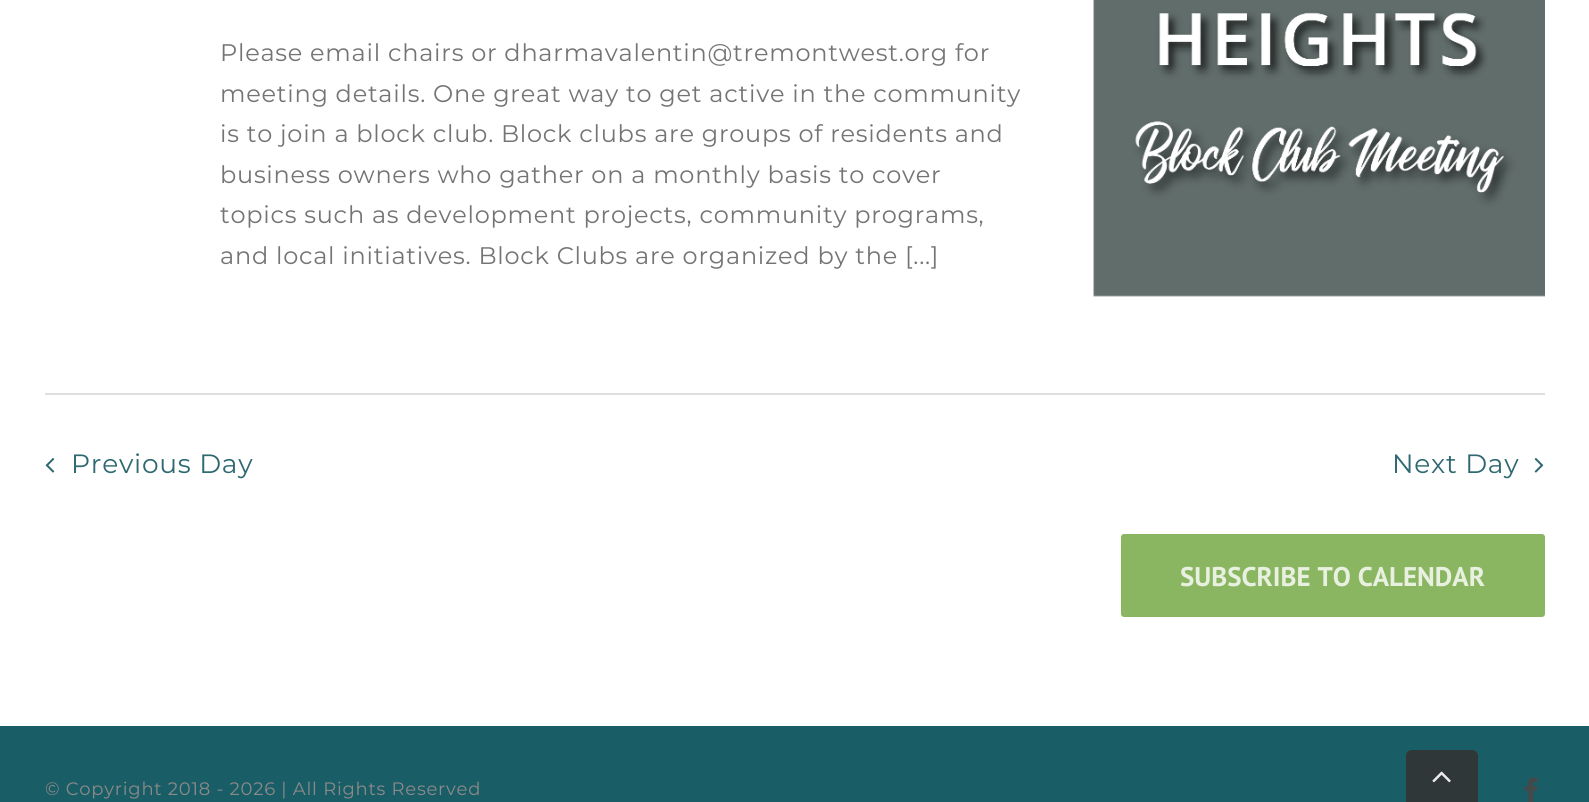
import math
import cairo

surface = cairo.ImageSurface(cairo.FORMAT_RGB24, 1589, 802)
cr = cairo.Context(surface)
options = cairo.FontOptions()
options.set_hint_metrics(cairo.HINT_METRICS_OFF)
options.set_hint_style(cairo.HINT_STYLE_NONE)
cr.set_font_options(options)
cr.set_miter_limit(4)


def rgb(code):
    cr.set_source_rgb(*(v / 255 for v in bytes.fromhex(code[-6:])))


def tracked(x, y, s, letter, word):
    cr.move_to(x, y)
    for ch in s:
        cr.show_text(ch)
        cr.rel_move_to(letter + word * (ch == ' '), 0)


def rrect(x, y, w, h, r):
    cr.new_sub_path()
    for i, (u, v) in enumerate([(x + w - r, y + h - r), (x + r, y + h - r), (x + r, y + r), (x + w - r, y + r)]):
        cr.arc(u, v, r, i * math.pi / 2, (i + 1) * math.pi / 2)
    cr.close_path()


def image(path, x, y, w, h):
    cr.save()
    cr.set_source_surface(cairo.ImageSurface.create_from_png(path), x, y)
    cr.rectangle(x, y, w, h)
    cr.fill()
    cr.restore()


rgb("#ffffff")
cr.paint()
image("img/1.png", 1093, 0, 452, 297)
rgb("#e0dede")
cr.rectangle(45, 393, 1500, 2)
cr.fill()
image("img/2.png", 45, 458, 10, 15)
image("img/3.png", 1534, 458, 10, 15)
rgb("#8ab662")
rrect(1121, 534, 424, 83, 3)
cr.fill()
rgb("#195e66")
cr.rectangle(0, 726, 1589, 76)
cr.fill()
image("img/4.png", 1524, 777, 14, 25)
rgb("#303738")
cr.new_path()
cr.move_to(1412, 750)
cr.line_to(1472, 750)
cr.curve_to(1475.5, 750, 1478, 752.5, 1478, 756)
cr.line_to(1478, 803)
cr.line_to(1406, 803)
cr.line_to(1406, 756)
cr.curve_to(1406, 752.5, 1408.5, 750, 1412, 750)
cr.close_path()
cr.fill()
image("img/5.png", 1432, 771, 19, 12)
cr.select_font_face("Montserrat")
cr.set_font_size(24)
rgb("#747474")
for x, y, s in [
    (220, 61, "Please email chairs or dharmavalentin@tremontwest.org for"),
    (220, 102, "meeting details. One great way to get active in the community"),
    (220, 142, "is to join a block club. Block clubs are groups of residents and"),
    (220, 183, "business owners who gather on a monthly basis to cover"),
    (220, 223, "topics such as development projects, community programs,"),
    (220, 264, "and local initiatives. Block Clubs are organized by the [...]"),
]:
    tracked(x, y, s, 0.75, 0)
cr.set_font_size(26.5)
rgb("#2e6870")
tracked(71, 473, "Previous Day", 0.75, 0)
tracked(1392, 473, "Next Day", 0.75, 0)
cr.select_font_face("PT Sans", cairo.FONT_SLANT_NORMAL, cairo.FONT_WEIGHT_BOLD)
cr.set_font_size(27)
rgb("#e8f0e0")
cr.move_to(1180, 586)
cr.show_text("SUBSCRIBE TO CALENDAR")
cr.select_font_face("Montserrat")
cr.set_font_size(18)
rgb("#8c8989")
tracked(45, 795, "© Copyright 2018 - 2026 | All Rights Reserved", 0.75, 0)
surface.write_to_png("page.png")
